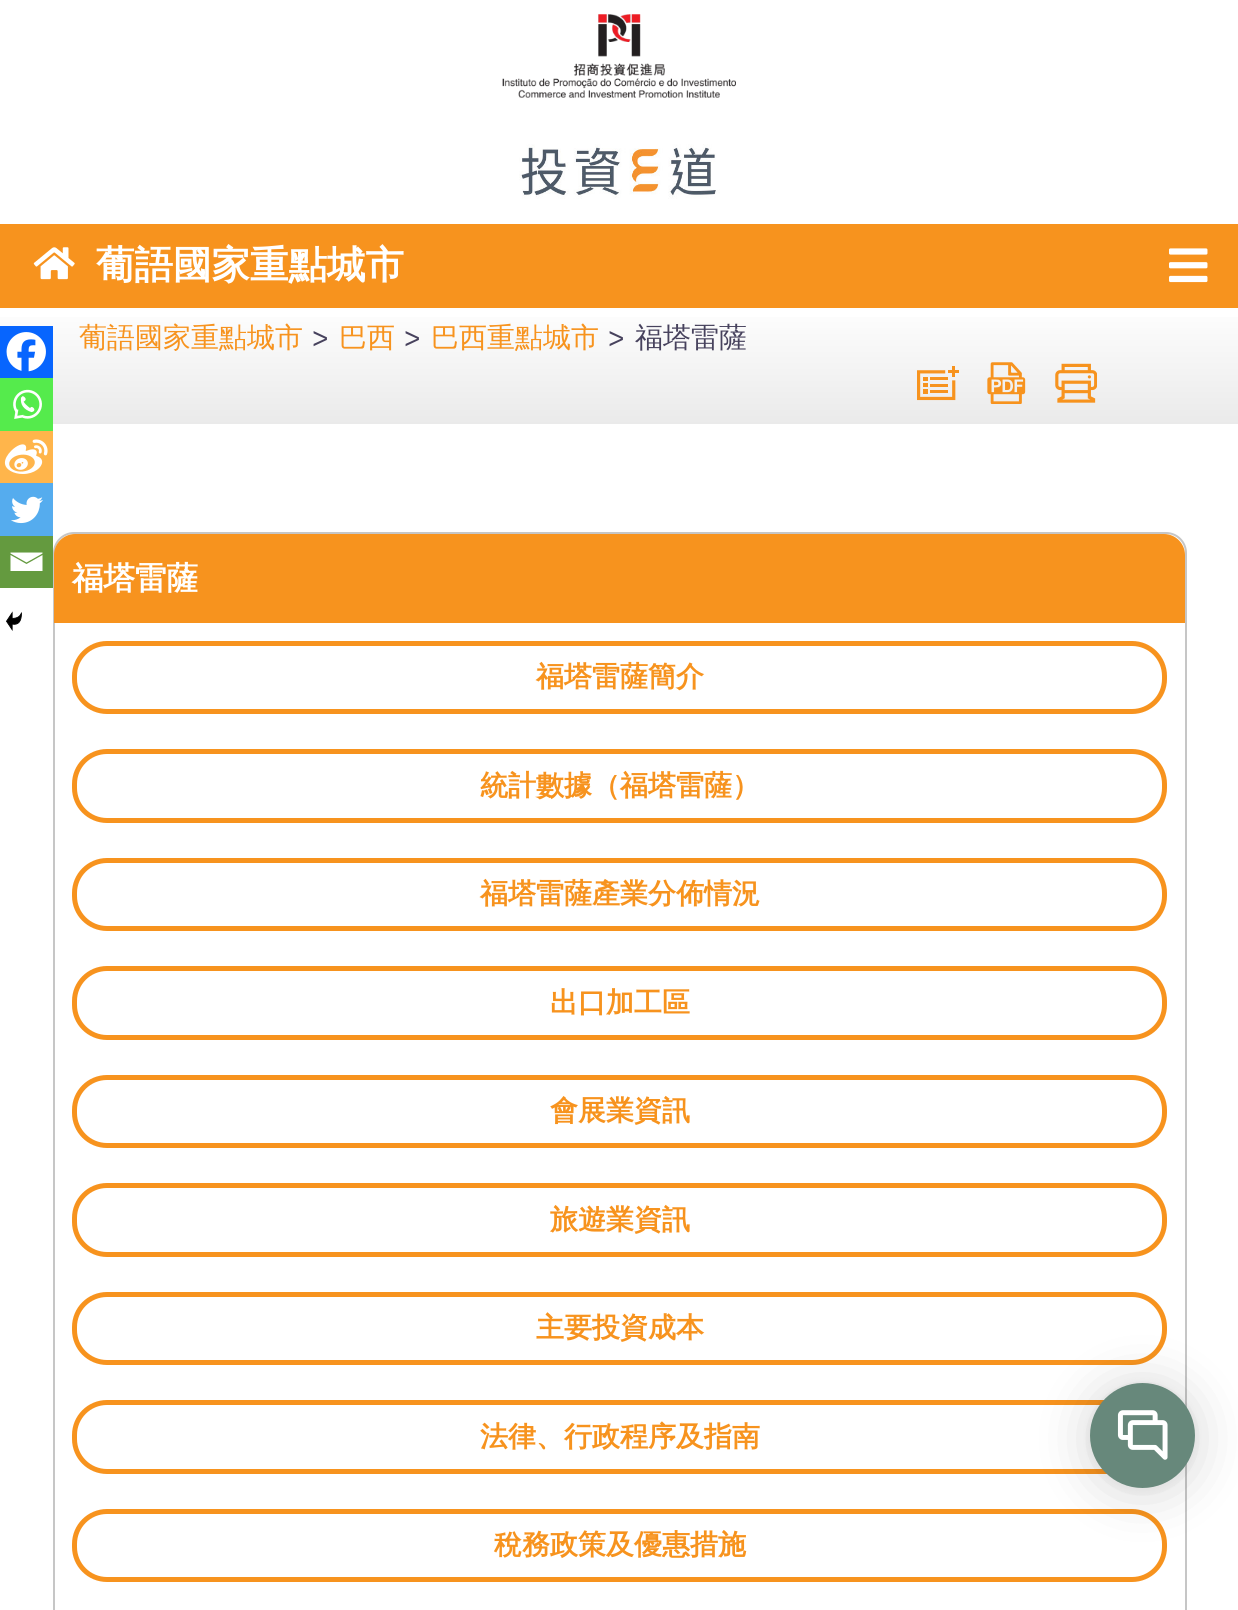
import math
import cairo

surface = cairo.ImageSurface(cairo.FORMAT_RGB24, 1238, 1610)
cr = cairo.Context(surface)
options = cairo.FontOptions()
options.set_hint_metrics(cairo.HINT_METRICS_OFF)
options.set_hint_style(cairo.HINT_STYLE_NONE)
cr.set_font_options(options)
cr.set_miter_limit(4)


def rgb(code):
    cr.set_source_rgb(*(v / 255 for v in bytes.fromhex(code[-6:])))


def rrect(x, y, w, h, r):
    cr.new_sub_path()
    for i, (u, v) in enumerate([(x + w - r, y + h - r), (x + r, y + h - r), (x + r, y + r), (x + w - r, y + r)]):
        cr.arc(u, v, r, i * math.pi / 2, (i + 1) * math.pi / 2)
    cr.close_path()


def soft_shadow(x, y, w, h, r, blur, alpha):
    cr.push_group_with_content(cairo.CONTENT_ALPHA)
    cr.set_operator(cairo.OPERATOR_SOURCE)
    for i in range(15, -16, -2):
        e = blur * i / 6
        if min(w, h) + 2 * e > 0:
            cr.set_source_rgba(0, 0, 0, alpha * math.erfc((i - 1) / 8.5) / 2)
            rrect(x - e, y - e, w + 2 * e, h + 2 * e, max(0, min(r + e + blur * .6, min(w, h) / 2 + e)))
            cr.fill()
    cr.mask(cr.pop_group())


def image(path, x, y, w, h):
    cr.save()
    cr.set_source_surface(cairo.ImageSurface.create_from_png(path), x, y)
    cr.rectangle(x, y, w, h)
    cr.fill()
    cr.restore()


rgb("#ffffff")
cr.paint()
image("img/1.png", 502, 14, 234, 84)
image("img/2.png", 519, 144, 201, 55)
rgb("#f7931e")
cr.rectangle(0, 224, 1238, 84)
cr.fill()
image("img/3.png", 33, 247, 42, 33)
image("img/4.png", 1169, 248, 39, 35)
gradient = cairo.LinearGradient(620, 308, 620, 424)
gradient.add_color_stop_rgba(0, 0.996, 0.996, 0.996, 1)
gradient.add_color_stop_rgba(1, 0.918, 0.918, 0.918, 1)
cr.set_source(gradient)
cr.rectangle(0, 317, 1238, 107)
cr.fill()
image("img/5.png", 917, 366, 42, 35)
image("img/6.png", 987, 362, 39, 42)
image("img/7.png", 1055, 363, 42, 40)
rgb("#0765fe")
cr.rectangle(0, 326, 53, 52)
cr.fill()
image("img/8.png", 6, 332, 40, 40)
rgb("#55eb4c")
cr.rectangle(0, 378, 53, 53)
cr.fill()
image("img/9.png", 13, 389, 29, 30)
rgb("#ffb54b")
cr.rectangle(0, 431, 53, 52)
cr.fill()
image("img/10.png", 4, 439, 44, 35)
rgb("#55acee")
cr.rectangle(0, 483, 53, 53)
cr.fill()
image("img/11.png", 11, 496, 32, 28)
rgb("#649a3f")
cr.rectangle(0, 536, 53, 52)
cr.fill()
rgb("#ffffff")
cr.new_path()
cr.move_to(9, 552.5)
cr.line_to(42.5, 552.5)
cr.line_to(42.5, 553.5)
cr.line_to(26.5, 562.5)
cr.line_to(10.5, 553.5)
cr.line_to(10.5, 552.5)
cr.move_to(10.5, 555)
cr.line_to(26.5, 564)
cr.line_to(42.5, 555)
cr.line_to(42.5, 571)
cr.line_to(10.5, 571)
cr.line_to(10.5, 555)
cr.fill()
image("img/12.png", 6, 611, 16, 20)
rrect(54, 533, 1132, 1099, 20)
rgb("#c6c6c6")
cr.stroke()
rgb("#f7931e")
cr.new_path()
cr.move_to(75, 534)
cr.line_to(1164, 534)
cr.curve_to(1175.5, 534, 1185, 543.5, 1185, 555)
cr.line_to(1185, 623)
cr.line_to(54, 623)
cr.line_to(54, 555)
cr.curve_to(54, 543.5, 63.5, 534, 75, 534)
cr.close_path()
cr.fill()
rrect(74.5, 643.5, 1090, 68, 32.5)
cr.set_line_width(5)
cr.stroke()
rrect(74.5, 751.5, 1090, 69, 32.5)
cr.stroke()
rrect(74.5, 860.5, 1090, 68, 32.5)
cr.stroke()
rrect(74.5, 968.5, 1090, 69, 32.5)
cr.stroke()
rrect(74.5, 1077.5, 1090, 68, 32.5)
cr.stroke()
rrect(74.5, 1185.5, 1090, 69, 32.5)
cr.stroke()
rrect(74.5, 1294.5, 1090, 68, 32.5)
cr.stroke()
rrect(74.5, 1402.5, 1090, 69, 32.5)
cr.stroke()
rrect(74.5, 1511.5, 1090, 68, 32.5)
cr.stroke()
rgb("#000000")
soft_shadow(1090, 1386, 105, 105, 52.5, 28, 0.16)
soft_shadow(1090, 1384, 105, 105, 52.5, 5, 0.06)
rgb("#67887b")
cr.arc(1142.5, 1435.5, 52.5, 0, 2 * math.pi)
cr.fill()
image("img/13.png", 1117, 1410, 51, 50)
cr.select_font_face("WenQuanYi Zen Hei", cairo.FONT_SLANT_NORMAL, cairo.FONT_WEIGHT_BOLD)
cr.set_font_size(38.5)
rgb("#ffffff")
cr.move_to(96, 278)
cr.show_text("葡語國家重點城市")
cr.select_font_face("WenQuanYi Zen Hei Medium")
cr.set_font_size(28)
rgb("#f7931e")
cr.move_to(79, 347)
cr.show_text("葡語國家重點城市")
cr.select_font_face("Work Sans")
rgb("#47425d")
cr.move_to(312, 347)
cr.show_text(">")
cr.select_font_face("WenQuanYi Zen Hei Medium")
rgb("#f7931e")
cr.move_to(339, 347)
cr.show_text("巴西")
cr.select_font_face("Work Sans")
rgb("#47425d")
cr.move_to(404, 347)
cr.show_text(">")
cr.select_font_face("WenQuanYi Zen Hei Medium")
rgb("#f7931e")
cr.move_to(431, 347)
cr.show_text("巴西重點城市")
cr.select_font_face("Work Sans")
rgb("#47425d")
cr.move_to(608, 347)
cr.show_text(">")
cr.select_font_face("WenQuanYi Zen Hei Medium")
cr.move_to(635, 347)
cr.show_text("福塔雷薩")
cr.select_font_face("WenQuanYi Zen Hei", cairo.FONT_SLANT_NORMAL, cairo.FONT_WEIGHT_BOLD)
cr.set_font_size(31.5)
rgb("#ffffff")
cr.move_to(72, 589)
cr.show_text("福塔雷薩")
cr.set_font_size(28)
rgb("#f7931e")
for x, y, s in [
    (536, 686, "福塔雷薩簡介"),
    (480, 795, "統計數據（福塔雷薩）"),
    (480, 903, "福塔雷薩產業分佈情況"),
    (550, 1012, "出口加工區"),
    (550, 1120, "會展業資訊"),
    (550, 1229, "旅遊業資訊"),
    (536, 1337, "主要投資成本"),
    (480, 1446, "法律、行政程序及指南"),
    (494, 1554, "稅務政策及優惠措施"),
]:
    cr.move_to(x, y)
    cr.show_text(s)
surface.write_to_png("page.png")
